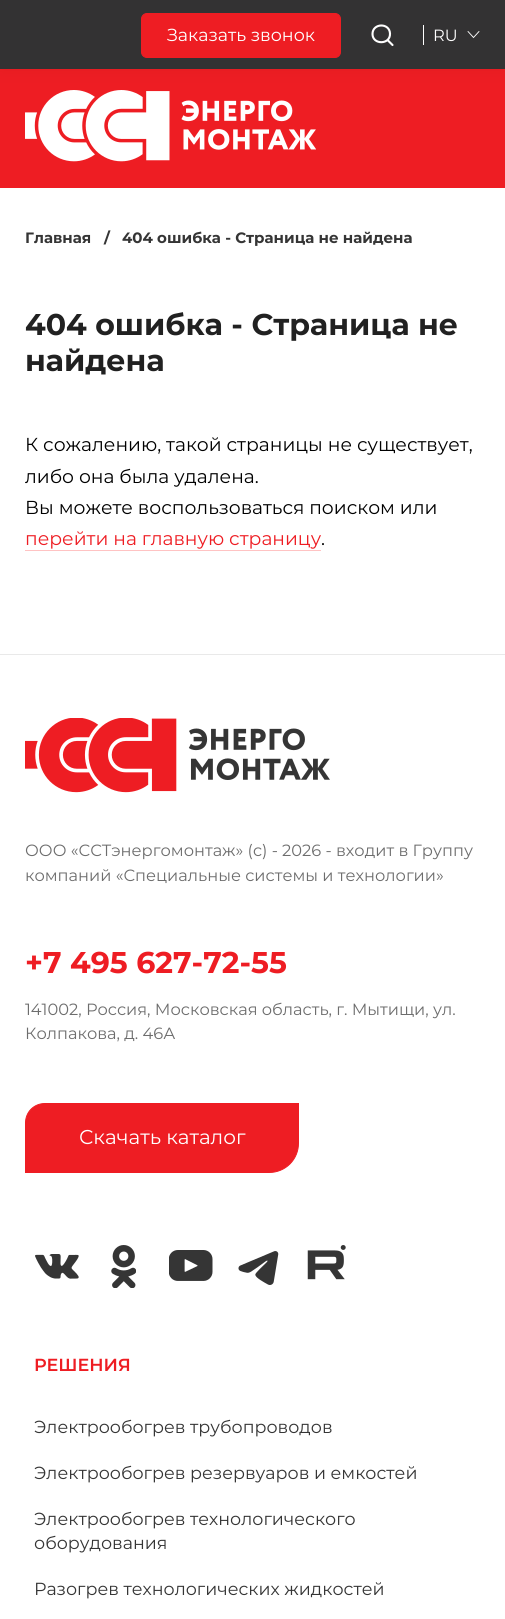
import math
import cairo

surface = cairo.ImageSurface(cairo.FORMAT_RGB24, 505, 1619)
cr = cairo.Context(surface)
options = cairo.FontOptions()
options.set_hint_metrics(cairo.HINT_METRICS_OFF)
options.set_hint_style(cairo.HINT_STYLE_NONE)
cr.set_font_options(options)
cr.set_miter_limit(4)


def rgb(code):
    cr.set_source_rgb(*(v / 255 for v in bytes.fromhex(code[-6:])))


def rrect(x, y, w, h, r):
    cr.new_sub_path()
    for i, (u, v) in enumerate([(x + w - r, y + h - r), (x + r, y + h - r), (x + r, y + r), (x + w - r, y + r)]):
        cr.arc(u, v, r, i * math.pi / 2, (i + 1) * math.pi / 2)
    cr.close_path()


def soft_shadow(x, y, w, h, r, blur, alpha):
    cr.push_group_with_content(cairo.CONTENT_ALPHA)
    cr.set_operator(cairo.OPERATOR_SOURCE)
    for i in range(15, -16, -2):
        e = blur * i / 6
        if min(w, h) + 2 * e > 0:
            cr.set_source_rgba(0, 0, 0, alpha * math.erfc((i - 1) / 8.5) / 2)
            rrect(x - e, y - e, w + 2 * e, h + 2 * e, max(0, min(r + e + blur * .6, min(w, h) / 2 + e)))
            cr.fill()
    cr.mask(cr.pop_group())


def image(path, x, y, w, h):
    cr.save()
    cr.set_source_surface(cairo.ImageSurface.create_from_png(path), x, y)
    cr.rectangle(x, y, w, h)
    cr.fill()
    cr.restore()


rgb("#ffffff")
cr.paint()
rgb("#ee1d23")
cr.rectangle(0, 69, 505, 119)
cr.fill()
image("img/1.png", 25, 90, 291, 72)
rgb("#000000")
soft_shadow(0, 0, 505, 69, 0, 9.5, 0.05)
rgb("#333233")
cr.rectangle(0, 0, 505, 69)
cr.fill()
rgb("#ee1d23")
rrect(141.5, 13.5, 199, 44, 5.5)
cr.fill_preserve()
cr.set_line_width(1)
cr.stroke()
cr.new_path()
cr.move_to(372.5, 34)
cr.curve_to(372.5, 23, 389.5, 22.5, 390, 33.5)
cr.curve_to(390.5, 45, 372.5, 45, 372.5, 34)
cr.close_path()
cr.move_to(387.5, 40)
cr.line_to(392.5, 45)
rgb("#ffffff")
cr.set_line_width(2.1)
cr.set_line_cap(cairo.LINE_CAP_ROUND)
cr.set_line_join(cairo.LINE_JOIN_ROUND)
cr.stroke()
cr.new_path()
cr.move_to(468, 31.5)
cr.line_to(473.5, 37.5)
cr.line_to(479, 31.5)
cr.set_line_width(0.9)
cr.set_line_join(cairo.LINE_JOIN_MITER)
cr.stroke()
for x, y, w, h, color in [
    (423, 25, 1, 20, "#ffffff"),
    (0, 654, 505, 1, "#e9e9e9"),
    (25, 550, 296, 1, "#ffc3c3"),
]:
    rgb(color)
    cr.rectangle(x, y, w, h)
    cr.fill()
image("img/2.png", 25, 718, 305, 75)
rgb("#ee1d23")
cr.new_path()
cr.move_to(45, 1103.5)
cr.line_to(298.5, 1103.5)
cr.line_to(298.5, 1143)
cr.curve_to(298.5, 1159.5, 285.5, 1172.5, 269, 1172.5)
cr.line_to(25.5, 1172.5)
cr.line_to(25.5, 1123)
cr.curve_to(25.5, 1112, 34, 1103.5, 45, 1103.5)
cr.close_path()
cr.fill_preserve()
cr.set_line_width(1)
cr.set_line_cap(cairo.LINE_CAP_BUTT)
cr.stroke()
image("img/3.png", 35, 1254, 44, 25)
image("img/4.png", 111, 1245, 25, 43)
image("img/5.png", 169, 1250, 44, 31)
image("img/6.png", 238, 1251, 41, 34)
image("img/7.png", 307, 1245, 39, 35)
cr.select_font_face("Montserrat")
cr.set_font_size(17.5)
rgb("#ffffff")
cr.move_to(167, 41)
cr.show_text("Заказать звонок")
cr.set_font_size(16.25)
cr.move_to(433, 41)
cr.show_text("RU")
cr.select_font_face("Montserrat", cairo.FONT_SLANT_NORMAL, cairo.FONT_WEIGHT_BOLD)
cr.set_font_size(15)
rgb("#353535")
for x, y, s in [
    (25, 243, "Главная"),
    (104, 243, "/"),
    (122, 243, "404 ошибка - Страница не найдена"),
]:
    cr.move_to(x, y)
    cr.show_text(s)
cr.set_font_size(30)
rgb("#212121")
cr.move_to(25, 335)
cr.show_text("404 ошибка - Страница не")
cr.move_to(25, 371)
cr.show_text("найдена")
cr.select_font_face("Montserrat")
cr.set_font_size(18.75)
rgb("#000000")
for x, y, s in [
    (25, 451, "К сожалению, такой страницы не существует,"),
    (25, 483, "либо она была удалена."),
    (25, 514, "Вы можете воспользоваться поиском или"),
]:
    cr.move_to(x, y)
    cr.show_text(s)
rgb("#ee1d23")
cr.move_to(25, 545)
cr.show_text("перейти на главную страницу")
rgb("#000000")
cr.move_to(321, 545)
cr.show_text(".")
cr.set_font_size(16.25)
rgb("#6d6d6d")
cr.move_to(25, 856)
cr.show_text("ООО «ССТэнергомонтаж» (c) - 2026 - входит в Группу")
cr.move_to(25, 881)
cr.show_text("компаний «Специальные системы и технологии»")
cr.select_font_face("Montserrat", cairo.FONT_SLANT_NORMAL, cairo.FONT_WEIGHT_BOLD)
cr.set_font_size(30)
rgb("#ee1d23")
cr.move_to(25, 973)
cr.show_text("+7 495 627-72-55")
cr.select_font_face("Montserrat")
cr.set_font_size(16.25)
rgb("#6d6d6d")
cr.move_to(25, 1015)
cr.show_text("141002, Россия, Московская область, г. Мытищи, ул.")
cr.move_to(25, 1039)
cr.show_text("Колпакова, д. 46А")
cr.set_font_size(20)
rgb("#ffffff")
cr.move_to(79, 1144)
cr.show_text("Скачать каталог")
cr.select_font_face("Montserrat SemiBold")
cr.set_font_size(17.5)
rgb("#ee1d23")
cr.move_to(34, 1371)
cr.show_text("РЕШЕНИЯ")
cr.select_font_face("Montserrat")
rgb("#353535")
for x, y, s in [
    (34, 1433, "Электрообогрев трубопроводов"),
    (34, 1479, "Электрообогрев резервуаров и емкостей"),
    (34, 1525, "Электрообогрев технологического"),
    (34, 1549, "оборудования"),
    (34, 1595, "Разогрев технологических жидкостей"),
]:
    cr.move_to(x, y)
    cr.show_text(s)
surface.write_to_png("page.png")
